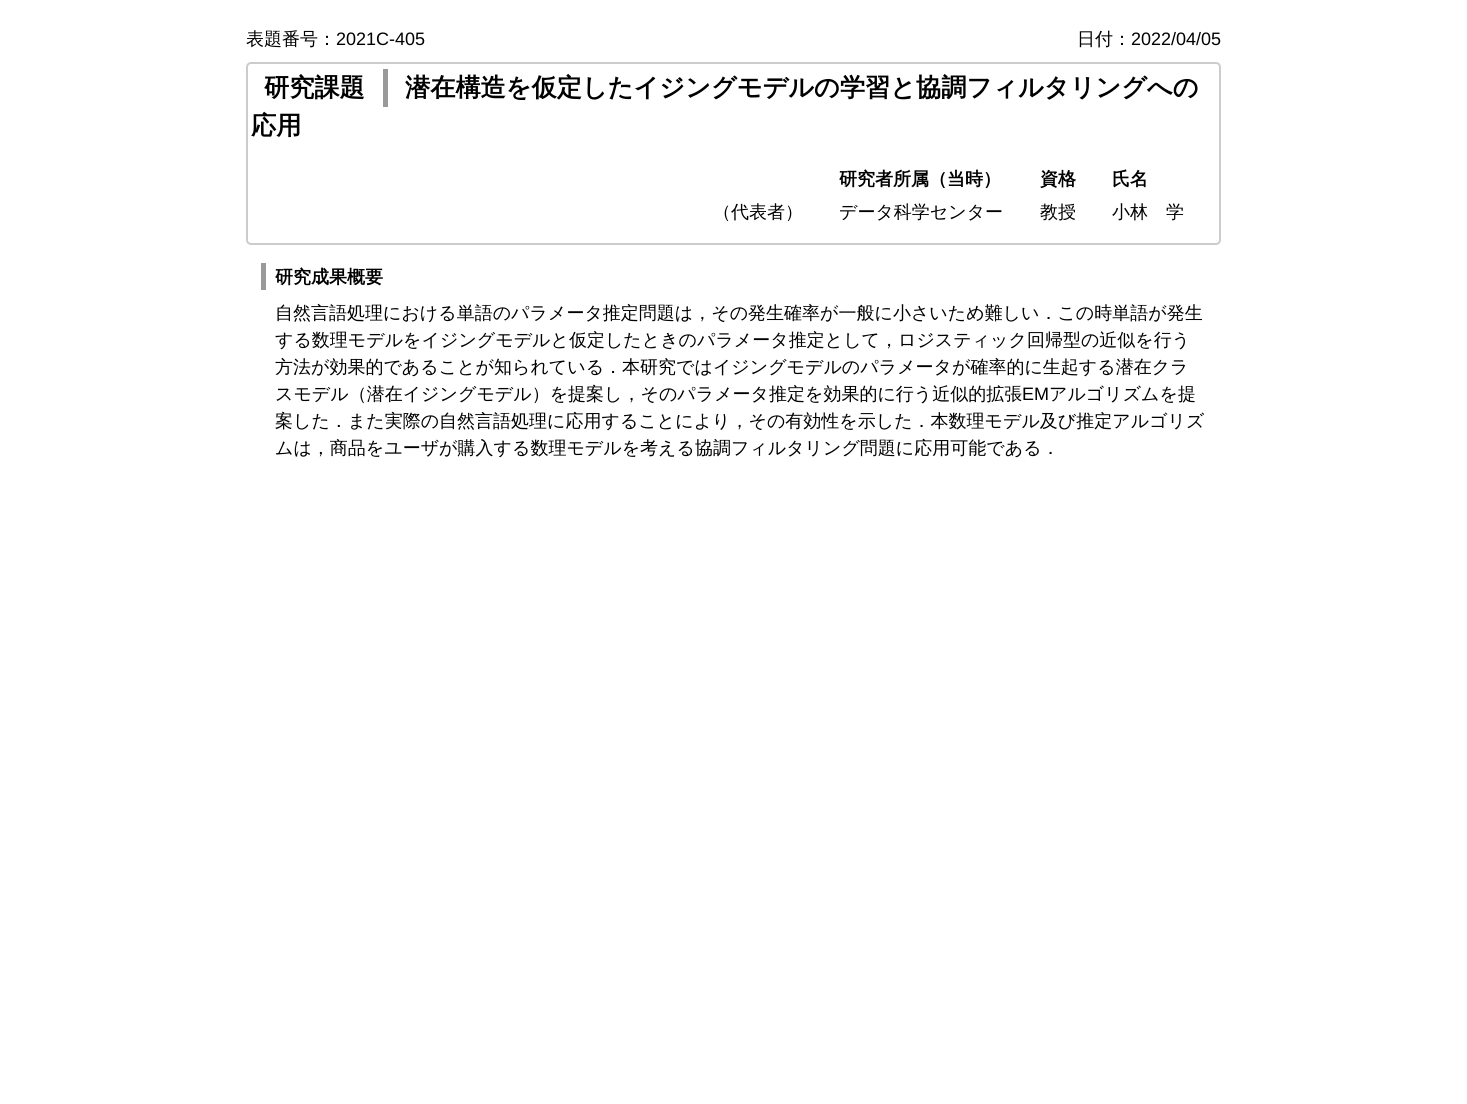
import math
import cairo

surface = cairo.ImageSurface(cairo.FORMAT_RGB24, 1467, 1104)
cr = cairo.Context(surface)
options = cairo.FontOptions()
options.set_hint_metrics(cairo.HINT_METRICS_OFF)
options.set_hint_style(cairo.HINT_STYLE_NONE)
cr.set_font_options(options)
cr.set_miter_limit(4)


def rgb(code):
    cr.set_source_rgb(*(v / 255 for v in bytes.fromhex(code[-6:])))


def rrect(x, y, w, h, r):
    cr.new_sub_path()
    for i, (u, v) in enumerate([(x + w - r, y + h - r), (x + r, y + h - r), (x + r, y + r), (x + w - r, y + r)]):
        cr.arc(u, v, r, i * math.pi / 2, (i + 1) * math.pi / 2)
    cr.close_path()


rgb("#ffffff")
cr.paint()
rrect(247, 63, 973, 181, 4)
rgb("#cccccc")
cr.stroke()
rgb("#999999")
cr.rectangle(383, 69, 5, 38)
cr.fill()
cr.rectangle(261, 263, 5, 27)
cr.fill()
cr.select_font_face("WenQuanYi Zen Hei Medium")
cr.set_font_size(18)
rgb("#000000")
cr.move_to(246, 45)
cr.show_text("表題番号：")
cr.select_font_face("Liberation Sans")
cr.move_to(336, 45)
cr.show_text("2021C-405")
cr.select_font_face("WenQuanYi Zen Hei Medium")
cr.move_to(1077, 45)
cr.show_text("日付：")
cr.select_font_face("Liberation Sans")
cr.move_to(1131, 45)
cr.show_text("2022/04/05")
cr.select_font_face("WenQuanYi Zen Hei", cairo.FONT_SLANT_NORMAL, cairo.FONT_WEIGHT_BOLD)
cr.set_font_size(25.2)
for x, y, s in [
    (264, 96, "研究課題"),
    (405, 96, "潜在構造を仮定したイジングモデルの学習と協調フィルタリングへの"),
    (251, 134, "応用"),
]:
    cr.move_to(x, y)
    cr.show_text(s)
cr.set_font_size(18)
for x, y, s in [
    (839, 185, "研究者所属（当時）"),
    (1040, 185, "資格"),
    (1112, 185, "氏名"),
]:
    cr.move_to(x, y)
    cr.show_text(s)
cr.select_font_face("WenQuanYi Zen Hei Medium")
for x, y, s in [
    (713, 218, "（代表者）"),
    (839, 218, "データ科学センター"),
    (1040, 218, "教授"),
    (1112, 218, "小林　学"),
]:
    cr.move_to(x, y)
    cr.show_text(s)
cr.select_font_face("WenQuanYi Zen Hei", cairo.FONT_SLANT_NORMAL, cairo.FONT_WEIGHT_BOLD)
cr.move_to(275, 283)
cr.show_text("研究成果概要")
cr.select_font_face("WenQuanYi Zen Hei Medium")
for x, y, s in [
    (275, 319, "自然言語処理における単語のパラメータ推定問題は，その発生確率が一般に小さいため難しい．この時単語が発生"),
    (275, 346, "する数理モデルをイジングモデルと仮定したときのパラメータ推定として，ロジスティック回帰型の近似を行う"),
    (275, 373, "方法が効果的であることが知られている．本研究ではイジングモデルのパラメータが確率的に生起する潜在クラ"),
    (275, 400, "スモデル（潜在イジングモデル）を提案し，そのパラメータ推定を効果的に行う近似的拡張"),
]:
    cr.move_to(x, y)
    cr.show_text(s)
cr.select_font_face("Liberation Sans")
cr.move_to(1022, 400)
cr.show_text("EM")
cr.select_font_face("WenQuanYi Zen Hei Medium")
for x, y, s in [
    (1049, 400, "アルゴリズムを提"),
    (275, 427, "案した．また実際の自然言語処理に応用することにより，その有効性を示した．本数理モデル及び推定アルゴリズ"),
    (275, 454, "ムは，商品をユーザが購入する数理モデルを考える協調フィルタリング問題に応用可能である．"),
]:
    cr.move_to(x, y)
    cr.show_text(s)
surface.write_to_png("page.png")
